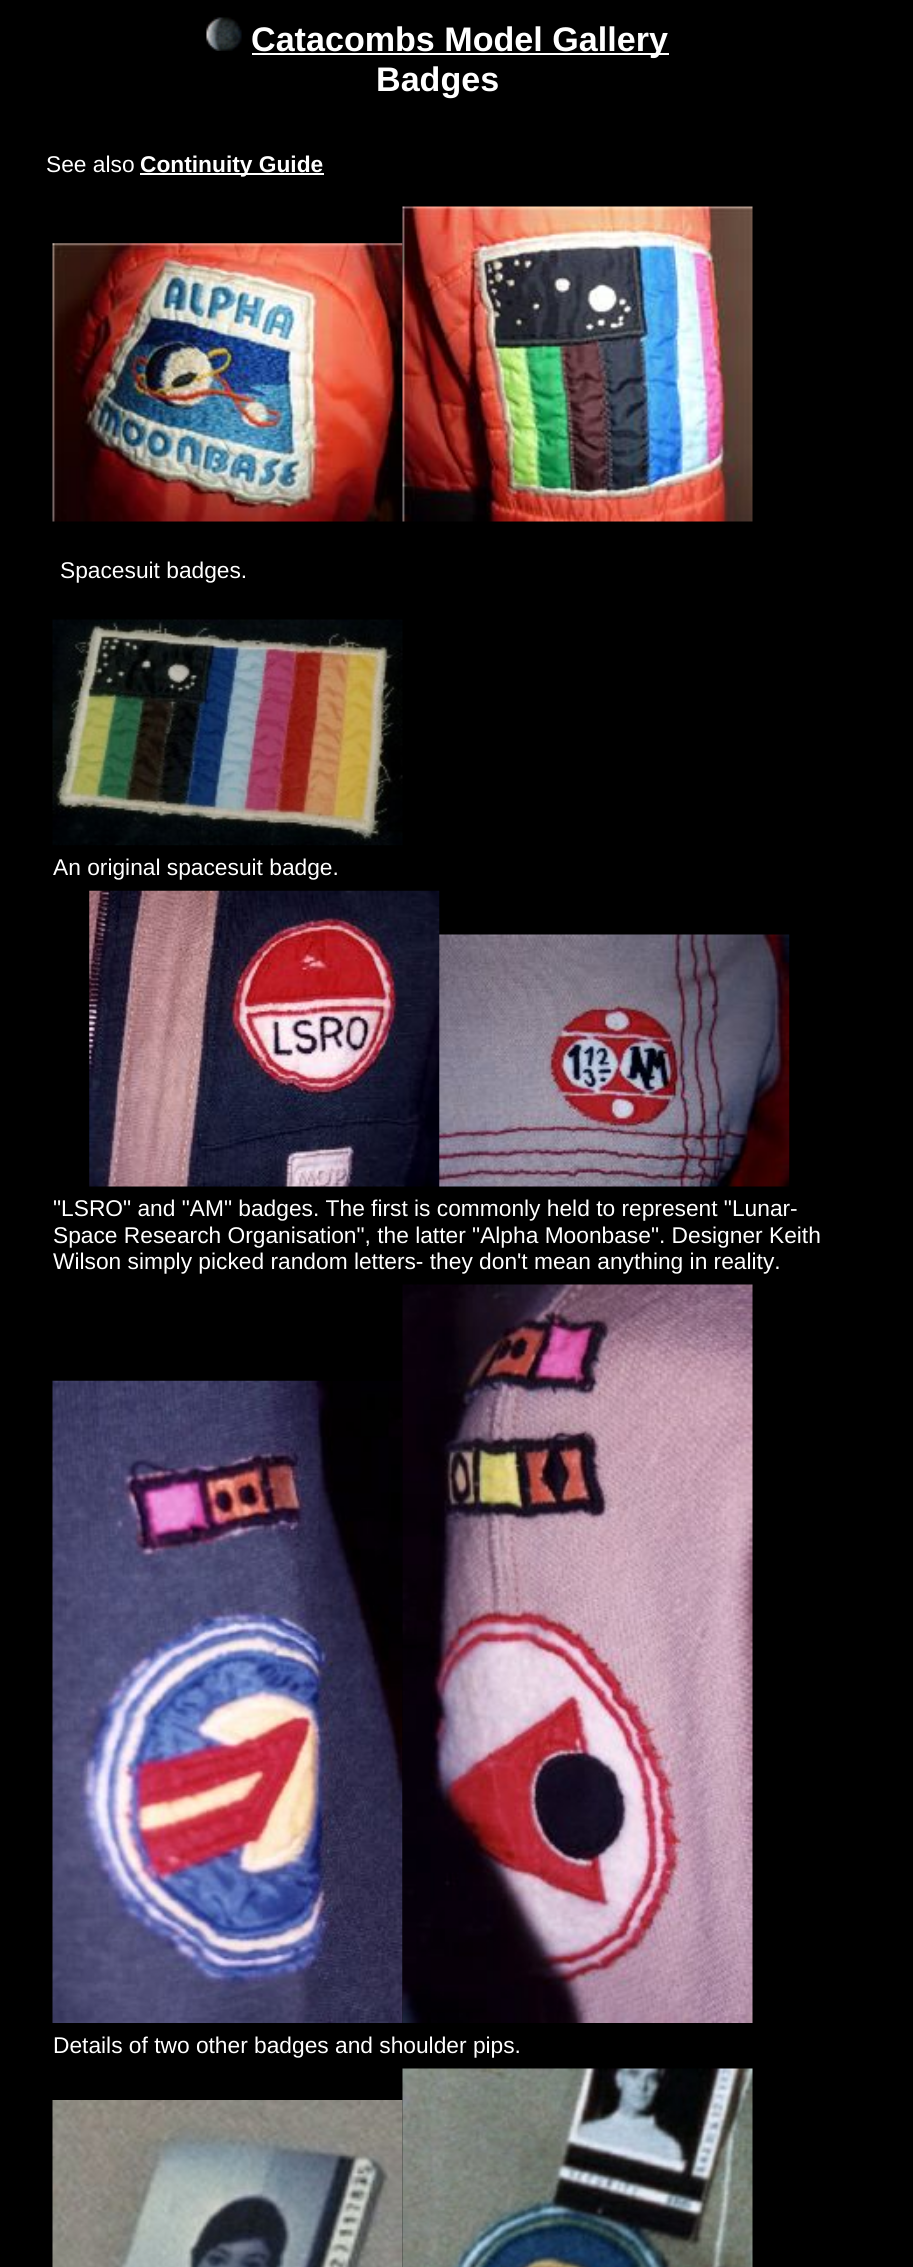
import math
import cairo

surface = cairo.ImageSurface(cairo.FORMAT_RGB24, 913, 2267)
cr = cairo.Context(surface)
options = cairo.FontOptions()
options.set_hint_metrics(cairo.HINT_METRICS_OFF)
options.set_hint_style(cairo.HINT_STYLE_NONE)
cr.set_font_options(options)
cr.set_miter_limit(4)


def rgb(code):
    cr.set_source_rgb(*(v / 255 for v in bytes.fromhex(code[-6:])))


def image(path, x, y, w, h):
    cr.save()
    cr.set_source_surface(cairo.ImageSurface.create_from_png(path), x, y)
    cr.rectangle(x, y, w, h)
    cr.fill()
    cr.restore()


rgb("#000000")
cr.paint()
image("img/1.png", 206, 17, 36, 34)
rgb("#ffffff")
cr.rectangle(252, 53, 417, 2)
cr.fill()
cr.rectangle(140, 173, 184, 2)
cr.fill()
image("img/2.png", 52, 243, 351, 279)
image("img/3.png", 402, 206, 351, 316)
image("img/4.png", 52, 619, 351, 227)
image("img/5.png", 89, 890, 351, 297)
image("img/6.png", 439, 934, 351, 253)
image("img/7.png", 52, 1380, 351, 643)
image("img/8.png", 402, 1284, 351, 739)
image("img/9.png", 52, 2100, 351, 167)
image("img/10.png", 402, 2068, 351, 199)
cr.select_font_face("Liberation Sans", cairo.FONT_SLANT_NORMAL, cairo.FONT_WEIGHT_BOLD)
cr.set_font_size(34.1)
cr.move_to(251, 51)
cr.show_text("Catacombs Model Gallery")
cr.move_to(376, 91)
cr.show_text("Badges")
cr.select_font_face("Liberation Sans")
cr.set_font_size(22.75)
cr.move_to(46, 172)
cr.show_text("See also")
cr.select_font_face("Liberation Sans", cairo.FONT_SLANT_NORMAL, cairo.FONT_WEIGHT_BOLD)
cr.move_to(140, 172)
cr.show_text("Continuity Guide")
cr.select_font_face("Liberation Sans")
for x, y, s in [
    (60, 578, "Spacesuit badges."),
    (53, 875, "An original spacesuit badge."),
    (53, 1216, "\"LSRO\" and \"AM\" badges. The first is commonly held to represent \"Lunar-"),
    (53, 1243, "Space Research Organisation\", the latter \"Alpha Moonbase\". Designer Keith"),
    (53, 1269, "Wilson simply picked random letters- they don't mean anything in reality."),
    (53, 2053, "Details of two other badges and shoulder pips."),
]:
    cr.move_to(x, y)
    cr.show_text(s)
surface.write_to_png("page.png")
